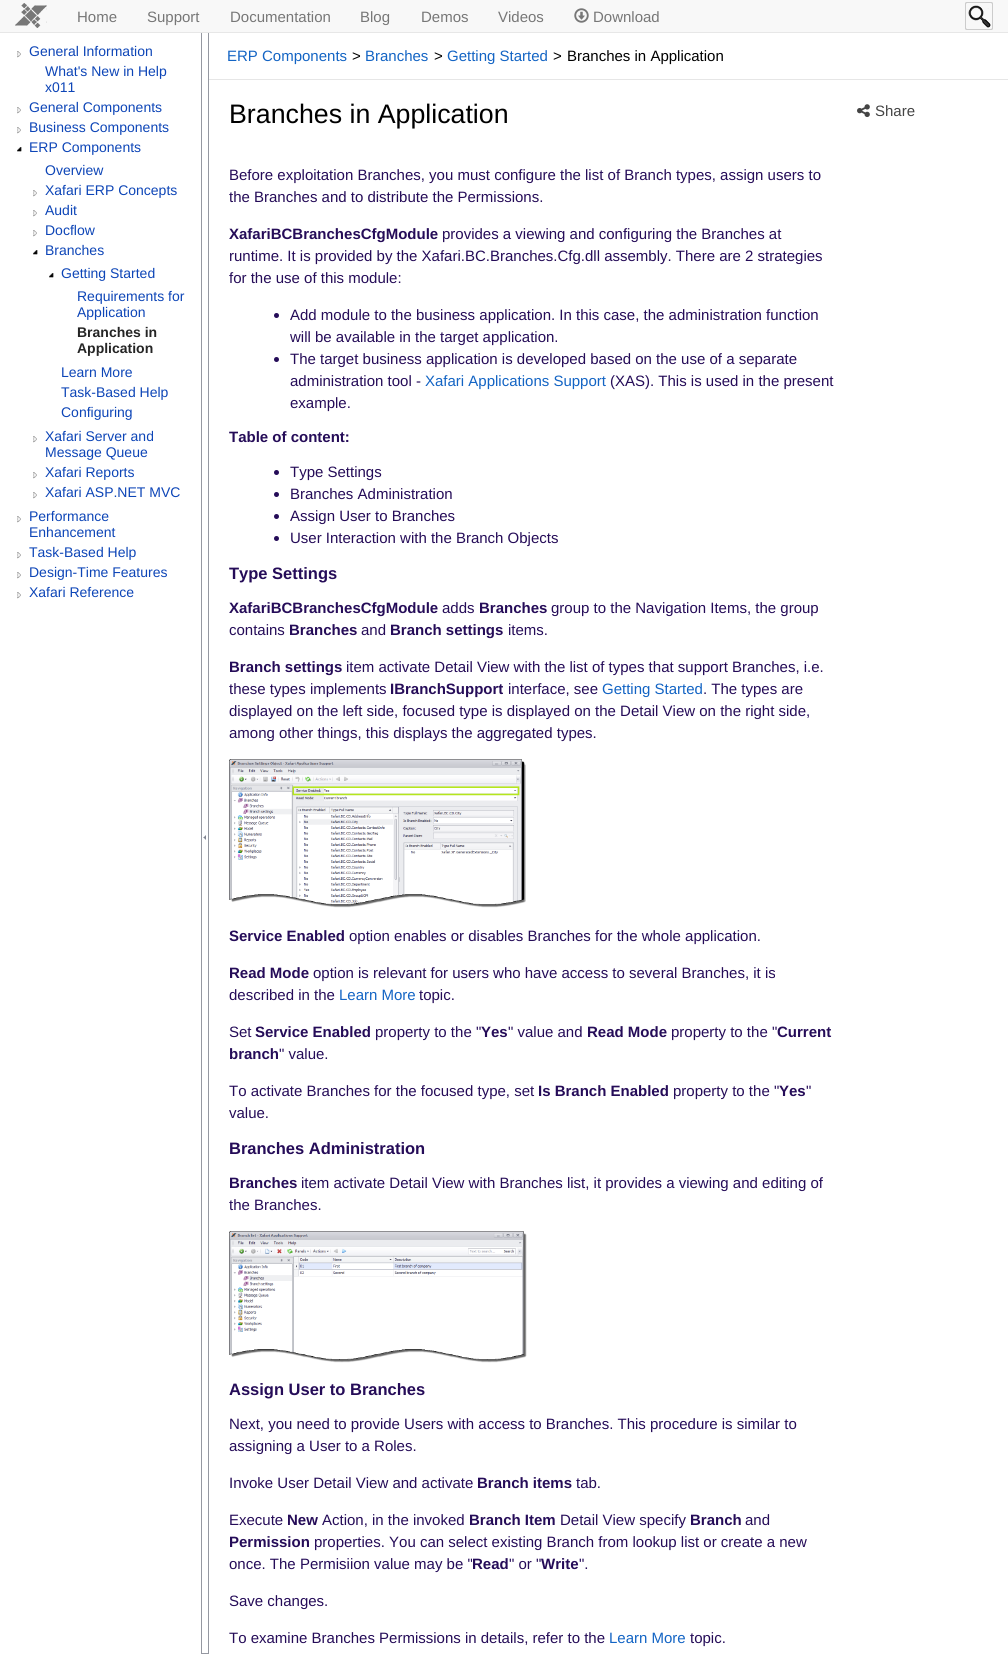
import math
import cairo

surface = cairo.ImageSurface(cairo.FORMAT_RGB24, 1008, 1654)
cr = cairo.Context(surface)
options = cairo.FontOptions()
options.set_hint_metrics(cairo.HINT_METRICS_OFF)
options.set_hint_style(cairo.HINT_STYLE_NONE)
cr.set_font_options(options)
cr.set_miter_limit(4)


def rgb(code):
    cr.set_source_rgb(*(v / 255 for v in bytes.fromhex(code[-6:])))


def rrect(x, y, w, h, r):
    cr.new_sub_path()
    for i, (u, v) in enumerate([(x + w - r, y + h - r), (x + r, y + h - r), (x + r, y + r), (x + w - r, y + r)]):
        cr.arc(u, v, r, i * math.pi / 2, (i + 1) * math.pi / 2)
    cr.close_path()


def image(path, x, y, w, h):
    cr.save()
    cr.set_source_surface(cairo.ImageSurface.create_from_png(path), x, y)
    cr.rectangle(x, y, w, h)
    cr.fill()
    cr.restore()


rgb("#ffffff")
cr.paint()
rgb("#f8f8f8")
cr.rectangle(0, 0, 1008, 32)
cr.fill()
rgb("#e7e7e7")
cr.rectangle(0, 32, 1008, 1)
cr.fill()
image("img/1.png", 15, 3, 32, 25)
image("img/2.png", 574, 8, 15, 15)
rrect(965.5, 2.5, 27, 27, 1.5)
rgb("#cccccc")
cr.set_line_width(1)
cr.stroke()
image("img/3.png", 968, 5, 23, 23)
rrect(965.5, 2.5, 27, 27, 1.5)
cr.stroke()
image("img/4.png", 17, 51, 4, 7)
image("img/4.png", 17, 107, 4, 7)
image("img/4.png", 17, 127, 4, 7)
image("img/5.png", 17, 147, 5, 7)
image("img/4.png", 33, 190, 4, 7)
image("img/4.png", 33, 210, 4, 7)
image("img/4.png", 33, 230, 4, 7)
image("img/5.png", 33, 250, 5, 7)
image("img/5.png", 49, 273, 5, 7)
image("img/4.png", 33, 436, 4, 7)
image("img/4.png", 33, 472, 4, 7)
image("img/4.png", 33, 492, 4, 7)
image("img/4.png", 17, 516, 4, 7)
image("img/4.png", 17, 552, 4, 7)
image("img/4.png", 17, 572, 4, 7)
image("img/4.png", 17, 592, 4, 7)
for x, y, w, h, color in [
    (208, 33, 1, 1621, "#9598a1"),
    (201, 1653, 8, 1, "#9598a1"),
    (201, 33, 1, 1621, "#9598a1"),
]:
    rgb(color)
    cr.rectangle(x, y, w, h)
    cr.fill()
image("img/6.png", 203, 835, 3, 5)
rgb("#e6e6e6")
cr.rectangle(209, 79, 799, 1)
cr.fill()
rgb("#250c58")
cr.arc(276.5, 315.5, 2.5, 0, 2 * math.pi)
cr.fill()
cr.arc(276.5, 359.5, 2.5, 0, 2 * math.pi)
cr.fill()
cr.arc(276.5, 472.5, 2.5, 0, 2 * math.pi)
cr.fill()
cr.arc(276.5, 494.5, 2.5, 0, 2 * math.pi)
cr.fill()
cr.arc(276.5, 516.5, 2.5, 0, 2 * math.pi)
cr.fill()
cr.arc(276.5, 538.5, 2.5, 0, 2 * math.pi)
cr.fill()
image("img/7.png", 229, 759, 297, 149)
image("img/8.png", 229, 1231, 298, 132)
image("img/9.png", 857, 104, 13, 14)
cr.select_font_face("Liberation Sans")
cr.set_font_size(15)
rgb("#777777")
for x, y, s in [
    (77, 22, "Home"),
    (147, 22, "Support"),
    (230, 22, "Documentation"),
    (360, 22, "Blog"),
    (421, 22, "Demos"),
    (498, 22, "Videos"),
    (593, 22, "Download"),
]:
    cr.move_to(x, y)
    cr.show_text(s)
cr.set_font_size(14)
rgb("#0d45b7")
for x, y, s in [
    (29, 56, "General Information"),
    (45, 76, "What's New in Help"),
    (45, 92, "х011"),
    (29, 112, "General Components"),
    (29, 132, "Business Components"),
    (29, 152, "ERP Components"),
    (45, 175, "Overview"),
    (45, 195, "Xafari ERP Concepts"),
    (45, 215, "Audit"),
    (45, 235, "Docflow"),
    (45, 255, "Branches"),
    (61, 278, "Getting Started"),
    (77, 301, "Requirements for"),
    (77, 317, "Application"),
]:
    cr.move_to(x, y)
    cr.show_text(s)
cr.select_font_face("Liberation Sans", cairo.FONT_SLANT_NORMAL, cairo.FONT_WEIGHT_BOLD)
rgb("#252525")
cr.move_to(77, 337)
cr.show_text("Branches in")
cr.move_to(77, 353)
cr.show_text("Application")
cr.select_font_face("Liberation Sans")
rgb("#0d45b7")
for x, y, s in [
    (61, 377, "Learn More"),
    (61, 397, "Task-Based Help"),
    (61, 417, "Configuring"),
    (45, 441, "Xafari Server and"),
    (45, 457, "Message Queue"),
    (45, 477, "Xafari Reports"),
    (45, 497, "Xafari ASP.NET MVC"),
    (29, 521, "Performance"),
    (29, 537, "Enhancement"),
    (29, 557, "Task-Based Help"),
    (29, 577, "Design-Time Features"),
    (29, 597, "Xafari Reference"),
]:
    cr.move_to(x, y)
    cr.show_text(s)
cr.set_font_size(15)
rgb("#1364c4")
cr.move_to(227, 61)
cr.show_text("ERP Components")
rgb("#000000")
cr.move_to(352, 61)
cr.show_text(">")
rgb("#1364c4")
cr.move_to(365, 61)
cr.show_text("Branches")
rgb("#000000")
cr.move_to(434, 61)
cr.show_text(">")
rgb("#1364c4")
cr.move_to(447, 61)
cr.show_text("Getting Started")
rgb("#000000")
cr.move_to(553, 61)
cr.show_text(">")
cr.move_to(567, 61)
cr.show_text("Branches in Application")
cr.set_font_size(26.75)
cr.move_to(229, 123)
cr.show_text("Branches in Application")
cr.set_font_size(15)
rgb("#250c58")
cr.move_to(229, 180)
cr.show_text("Before exploitation Branches, you must configure the list of Branch types, assign users to")
cr.move_to(229, 202)
cr.show_text("the Branches and to distribute the Permissions.")
cr.select_font_face("Liberation Sans", cairo.FONT_SLANT_NORMAL, cairo.FONT_WEIGHT_BOLD)
cr.move_to(229, 239)
cr.show_text("XafariBCBranchesCfgModule")
cr.select_font_face("Liberation Sans")
for x, y, s in [
    (442, 239, "provides a viewing and configuring the Branches at"),
    (229, 261, "runtime. It is provided by the Xafari.BC.Branches.Cfg.dll assembly. There are 2 strategies"),
    (229, 283, "for the use of this module:"),
    (290, 320, "Add module to the business application. In this case, the administration function"),
    (290, 342, "will be available in the target application."),
    (290, 364, "The target business application is developed based on the use of a separate"),
    (290, 386, "administration tool -"),
]:
    cr.move_to(x, y)
    cr.show_text(s)
rgb("#1364c4")
cr.move_to(425, 386)
cr.show_text("Xafari Applications Support")
rgb("#250c58")
cr.move_to(610, 386)
cr.show_text("(XAS). This is used in the present")
cr.move_to(290, 408)
cr.show_text("example.")
cr.select_font_face("Liberation Sans", cairo.FONT_SLANT_NORMAL, cairo.FONT_WEIGHT_BOLD)
cr.move_to(229, 442)
cr.show_text("Table of content:")
cr.select_font_face("Liberation Sans")
for x, y, s in [
    (290, 477, "Type Settings"),
    (290, 499, "Branches Administration"),
    (290, 521, "Assign User to Branches"),
    (290, 543, "User Interaction with the Branch Objects"),
]:
    cr.move_to(x, y)
    cr.show_text(s)
cr.select_font_face("Liberation Sans", cairo.FONT_SLANT_NORMAL, cairo.FONT_WEIGHT_BOLD)
cr.set_font_size(16.5)
cr.move_to(229, 579)
cr.show_text("Type Settings")
cr.set_font_size(15)
cr.move_to(229, 613)
cr.show_text("XafariBCBranchesCfgModule")
cr.select_font_face("Liberation Sans")
cr.move_to(442, 613)
cr.show_text("adds")
cr.select_font_face("Liberation Sans", cairo.FONT_SLANT_NORMAL, cairo.FONT_WEIGHT_BOLD)
cr.move_to(479, 613)
cr.show_text("Branches")
cr.select_font_face("Liberation Sans")
cr.move_to(551, 613)
cr.show_text("group to the Navigation Items, the group")
cr.move_to(229, 635)
cr.show_text("contains")
cr.select_font_face("Liberation Sans", cairo.FONT_SLANT_NORMAL, cairo.FONT_WEIGHT_BOLD)
cr.move_to(289, 635)
cr.show_text("Branches")
cr.select_font_face("Liberation Sans")
cr.move_to(361, 635)
cr.show_text("and")
cr.select_font_face("Liberation Sans", cairo.FONT_SLANT_NORMAL, cairo.FONT_WEIGHT_BOLD)
cr.move_to(390, 635)
cr.show_text("Branch settings")
cr.select_font_face("Liberation Sans")
cr.move_to(508, 635)
cr.show_text("items.")
cr.select_font_face("Liberation Sans", cairo.FONT_SLANT_NORMAL, cairo.FONT_WEIGHT_BOLD)
cr.move_to(229, 672)
cr.show_text("Branch settings")
cr.select_font_face("Liberation Sans")
cr.move_to(346, 672)
cr.show_text("item activate Detail View with the list of types that support Branches, i.e.")
cr.move_to(229, 694)
cr.show_text("these types implements")
cr.select_font_face("Liberation Sans", cairo.FONT_SLANT_NORMAL, cairo.FONT_WEIGHT_BOLD)
cr.move_to(390, 694)
cr.show_text("IBranchSupport")
cr.select_font_face("Liberation Sans")
cr.move_to(508, 694)
cr.show_text("interface, see")
rgb("#1364c4")
cr.move_to(602, 694)
cr.show_text("Getting Started")
rgb("#250c58")
for x, y, s in [
    (703, 694, ". The types are"),
    (229, 716, "displayed on the left side, focused type is displayed on the Detail View on the right side,"),
    (229, 738, "among other things, this displays the aggregated types."),
]:
    cr.move_to(x, y)
    cr.show_text(s)
cr.select_font_face("Liberation Sans", cairo.FONT_SLANT_NORMAL, cairo.FONT_WEIGHT_BOLD)
cr.move_to(229, 941)
cr.show_text("Service Enabled")
cr.select_font_face("Liberation Sans")
cr.move_to(349, 941)
cr.show_text("option enables or disables Branches for the whole application.")
cr.select_font_face("Liberation Sans", cairo.FONT_SLANT_NORMAL, cairo.FONT_WEIGHT_BOLD)
cr.move_to(229, 978)
cr.show_text("Read Mode")
cr.select_font_face("Liberation Sans")
cr.move_to(313, 978)
cr.show_text("option is relevant for users who have access to several Branches, it is")
cr.move_to(229, 1000)
cr.show_text("described in the")
rgb("#1364c4")
cr.move_to(339, 1000)
cr.show_text("Learn More")
rgb("#250c58")
cr.move_to(419, 1000)
cr.show_text("topic.")
cr.move_to(229, 1037)
cr.show_text("Set")
cr.select_font_face("Liberation Sans", cairo.FONT_SLANT_NORMAL, cairo.FONT_WEIGHT_BOLD)
cr.move_to(255, 1037)
cr.show_text("Service Enabled")
cr.select_font_face("Liberation Sans")
cr.move_to(375, 1037)
cr.show_text("property to the \"")
cr.select_font_face("Liberation Sans", cairo.FONT_SLANT_NORMAL, cairo.FONT_WEIGHT_BOLD)
cr.move_to(481, 1037)
cr.show_text("Yes")
cr.select_font_face("Liberation Sans")
cr.move_to(508, 1037)
cr.show_text("\" value and")
cr.select_font_face("Liberation Sans", cairo.FONT_SLANT_NORMAL, cairo.FONT_WEIGHT_BOLD)
cr.move_to(587, 1037)
cr.show_text("Read Mode")
cr.select_font_face("Liberation Sans")
cr.move_to(671, 1037)
cr.show_text("property to the \"")
cr.select_font_face("Liberation Sans", cairo.FONT_SLANT_NORMAL, cairo.FONT_WEIGHT_BOLD)
cr.move_to(777, 1037)
cr.show_text("Current")
cr.move_to(229, 1059)
cr.show_text("branch")
cr.select_font_face("Liberation Sans")
cr.move_to(279, 1059)
cr.show_text("\" value.")
cr.move_to(229, 1096)
cr.show_text("To activate Branches for the focused type, set")
cr.select_font_face("Liberation Sans", cairo.FONT_SLANT_NORMAL, cairo.FONT_WEIGHT_BOLD)
cr.move_to(538, 1096)
cr.show_text("Is Branch Enabled")
cr.select_font_face("Liberation Sans")
cr.move_to(673, 1096)
cr.show_text("property to the \"")
cr.select_font_face("Liberation Sans", cairo.FONT_SLANT_NORMAL, cairo.FONT_WEIGHT_BOLD)
cr.move_to(779, 1096)
cr.show_text("Yes")
cr.select_font_face("Liberation Sans")
cr.move_to(806, 1096)
cr.show_text("\"")
cr.move_to(229, 1118)
cr.show_text("value.")
cr.select_font_face("Liberation Sans", cairo.FONT_SLANT_NORMAL, cairo.FONT_WEIGHT_BOLD)
cr.set_font_size(16.5)
cr.move_to(229, 1154)
cr.show_text("Branches Administration")
cr.set_font_size(15)
cr.move_to(229, 1188)
cr.show_text("Branches")
cr.select_font_face("Liberation Sans")
cr.move_to(301, 1188)
cr.show_text("item activate Detail View with Branches list, it provides a viewing and editing of")
cr.move_to(229, 1210)
cr.show_text("the Branches.")
cr.select_font_face("Liberation Sans", cairo.FONT_SLANT_NORMAL, cairo.FONT_WEIGHT_BOLD)
cr.set_font_size(16.5)
cr.move_to(229, 1395)
cr.show_text("Assign User to Branches")
cr.select_font_face("Liberation Sans")
cr.set_font_size(15)
for x, y, s in [
    (229, 1429, "Next, you need to provide Users with access to Branches. This procedure is similar to"),
    (229, 1451, "assigning a User to a Roles."),
    (229, 1488, "Invoke User Detail View and activate"),
]:
    cr.move_to(x, y)
    cr.show_text(s)
cr.select_font_face("Liberation Sans", cairo.FONT_SLANT_NORMAL, cairo.FONT_WEIGHT_BOLD)
cr.move_to(477, 1488)
cr.show_text("Branch items")
cr.select_font_face("Liberation Sans")
cr.move_to(576, 1488)
cr.show_text("tab.")
cr.move_to(229, 1525)
cr.show_text("Execute")
cr.select_font_face("Liberation Sans", cairo.FONT_SLANT_NORMAL, cairo.FONT_WEIGHT_BOLD)
cr.move_to(287, 1525)
cr.show_text("New")
cr.select_font_face("Liberation Sans")
cr.move_to(322, 1525)
cr.show_text("Action, in the invoked")
cr.select_font_face("Liberation Sans", cairo.FONT_SLANT_NORMAL, cairo.FONT_WEIGHT_BOLD)
cr.move_to(469, 1525)
cr.show_text("Branch Item")
cr.select_font_face("Liberation Sans")
cr.move_to(560, 1525)
cr.show_text("Detail View specify")
cr.select_font_face("Liberation Sans", cairo.FONT_SLANT_NORMAL, cairo.FONT_WEIGHT_BOLD)
cr.move_to(690, 1525)
cr.show_text("Branch")
cr.select_font_face("Liberation Sans")
cr.move_to(745, 1525)
cr.show_text("and")
cr.select_font_face("Liberation Sans", cairo.FONT_SLANT_NORMAL, cairo.FONT_WEIGHT_BOLD)
cr.move_to(229, 1547)
cr.show_text("Permission")
cr.select_font_face("Liberation Sans")
cr.move_to(314, 1547)
cr.show_text("properties. You can select existing Branch from lookup list or create a new")
cr.move_to(229, 1569)
cr.show_text("once. The Permisiion value may be \"")
cr.select_font_face("Liberation Sans", cairo.FONT_SLANT_NORMAL, cairo.FONT_WEIGHT_BOLD)
cr.move_to(472, 1569)
cr.show_text("Read")
cr.select_font_face("Liberation Sans")
cr.move_to(509, 1569)
cr.show_text("\" or \"")
cr.select_font_face("Liberation Sans", cairo.FONT_SLANT_NORMAL, cairo.FONT_WEIGHT_BOLD)
cr.move_to(541, 1569)
cr.show_text("Write")
cr.select_font_face("Liberation Sans")
for x, y, s in [
    (579, 1569, "\"."),
    (229, 1606, "Save changes."),
    (229, 1643, "To examine Branches Permissions in details, refer to the"),
]:
    cr.move_to(x, y)
    cr.show_text(s)
rgb("#1364c4")
cr.move_to(609, 1643)
cr.show_text("Learn More")
rgb("#250c58")
cr.move_to(690, 1643)
cr.show_text("topic.")
rgb("#444444")
cr.move_to(875, 116)
cr.show_text("Share")
surface.write_to_png("page.png")
